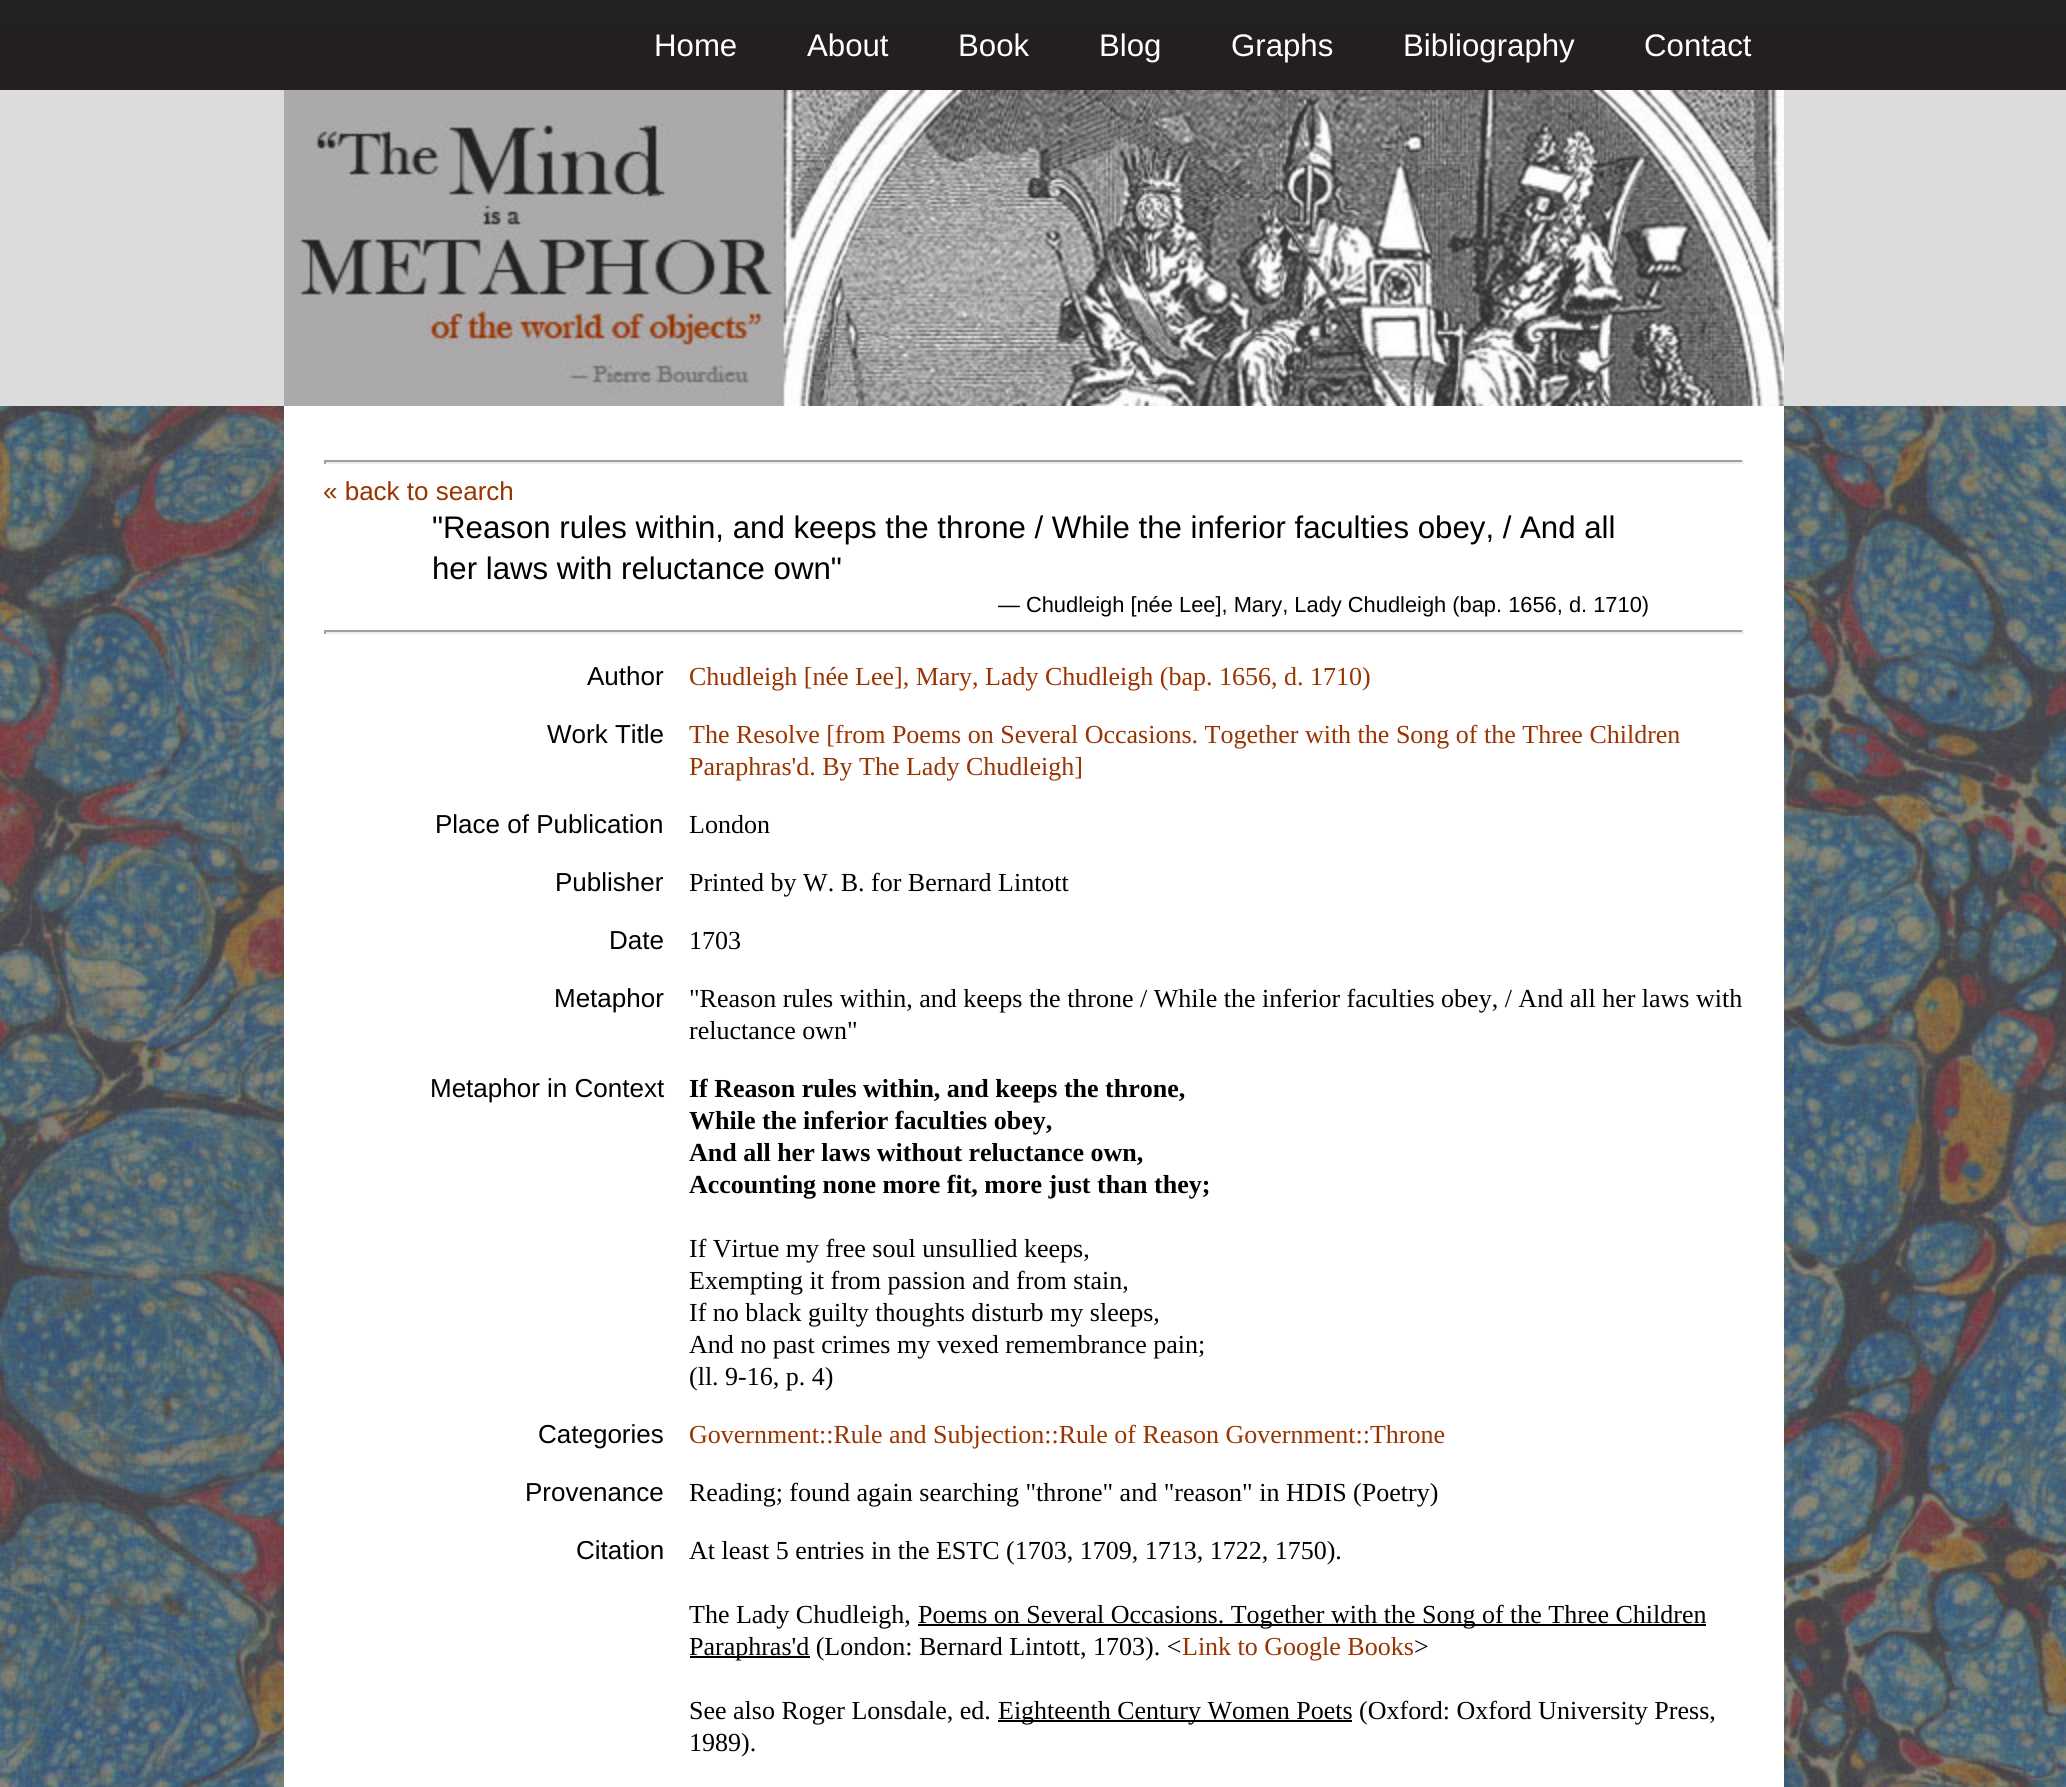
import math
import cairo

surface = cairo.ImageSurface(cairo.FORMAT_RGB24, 2066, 1787)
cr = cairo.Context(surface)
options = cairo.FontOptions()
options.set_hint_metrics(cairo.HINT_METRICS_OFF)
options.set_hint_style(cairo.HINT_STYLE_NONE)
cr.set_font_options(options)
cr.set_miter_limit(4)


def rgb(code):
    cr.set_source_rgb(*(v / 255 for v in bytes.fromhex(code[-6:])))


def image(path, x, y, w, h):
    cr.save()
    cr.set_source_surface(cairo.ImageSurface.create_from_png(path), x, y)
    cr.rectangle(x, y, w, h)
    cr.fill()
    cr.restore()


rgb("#222222")
cr.paint()
rgb("#231f20")
cr.rectangle(0, 26, 2066, 64)
cr.fill()
rgb("#dddcdc")
cr.rectangle(0, 90, 2066, 316)
cr.fill()
image("img/1.png", 284, 90, 1500, 316)
image("img/2.png", 0, 406, 2066, 1381)
for x, y, w, h, color in [
    (284, 406, 1500, 1381, "#ffffff"),
    (324, 460, 1420, 2, "#9f9f9f"),
    (1742, 460, 2, 4, "#eeeeee"),
    (324, 462, 1420, 2, "#eeeeee"),
    (324, 460, 2, 4, "#9f9f9f"),
    (324, 630, 1420, 2, "#9f9f9f"),
    (1742, 630, 2, 4, "#eeeeee"),
    (324, 632, 1420, 2, "#eeeeee"),
    (324, 630, 2, 4, "#9f9f9f"),
    (918, 1624, 788, 2, "#000000"),
    (690, 1656, 120, 2, "#000000"),
    (998, 1720, 354, 2, "#000000"),
]:
    rgb(color)
    cr.rectangle(x, y, w, h)
    cr.fill()
cr.select_font_face("Liberation Sans")
cr.set_font_size(31.2)
rgb("#ffffff")
for x, y, s in [
    (654, 56, "Home"),
    (807, 56, "About"),
    (958, 56, "Book"),
    (1099, 56, "Blog"),
    (1231, 56, "Graphs"),
    (1403, 56, "Bibliography"),
    (1644, 56, "Contact"),
]:
    cr.move_to(x, y)
    cr.show_text(s)
cr.set_font_size(26)
rgb("#993300")
cr.move_to(323, 500)
cr.show_text("« back to search")
cr.set_font_size(31.2)
rgb("#000000")
cr.move_to(432, 538)
cr.show_text("\"Reason rules within, and keeps the throne / While the inferior faculties obey, / And all")
cr.move_to(432, 579)
cr.show_text("her laws with reluctance own\"")
cr.set_font_size(21.85)
cr.move_to(998, 612)
cr.show_text("— Chudleigh [née Lee], Mary, Lady Chudleigh (bap. 1656, d. 1710)")
cr.set_font_size(26)
cr.move_to(587, 685)
cr.show_text("Author")
cr.select_font_face("Liberation Serif")
rgb("#993300")
cr.move_to(689, 685)
cr.show_text("Chudleigh [née Lee], Mary, Lady Chudleigh (bap. 1656, d. 1710)")
cr.select_font_face("Liberation Sans")
rgb("#000000")
cr.move_to(547, 743)
cr.show_text("Work Title")
cr.select_font_face("Liberation Serif")
rgb("#993300")
cr.move_to(689, 743)
cr.show_text("The Resolve [from Poems on Several Occasions. Together with the Song of the Three Children")
cr.move_to(689, 775)
cr.show_text("Paraphras'd. By The Lady Chudleigh]")
cr.select_font_face("Liberation Sans")
rgb("#000000")
cr.move_to(435, 833)
cr.show_text("Place of Publication")
cr.select_font_face("Liberation Serif")
cr.move_to(689, 833)
cr.show_text("London")
cr.select_font_face("Liberation Sans")
cr.move_to(555, 891)
cr.show_text("Publisher")
cr.select_font_face("Liberation Serif")
cr.move_to(689, 891)
cr.show_text("Printed by W. B. for Bernard Lintott")
cr.select_font_face("Liberation Sans")
cr.move_to(609, 949)
cr.show_text("Date")
cr.select_font_face("Liberation Serif")
cr.move_to(689, 949)
cr.show_text("1703")
cr.select_font_face("Liberation Sans")
cr.move_to(554, 1007)
cr.show_text("Metaphor")
cr.select_font_face("Liberation Serif")
cr.move_to(689, 1007)
cr.show_text("\"Reason rules within, and keeps the throne / While the inferior faculties obey, / And all her laws with")
cr.move_to(689, 1039)
cr.show_text("reluctance own\"")
cr.select_font_face("Liberation Sans")
cr.move_to(430, 1097)
cr.show_text("Metaphor in Context")
cr.select_font_face("Liberation Serif", cairo.FONT_SLANT_NORMAL, cairo.FONT_WEIGHT_BOLD)
for x, y, s in [
    (689, 1097, "If Reason rules within, and keeps the throne,"),
    (689, 1129, "While the inferior faculties obey,"),
    (689, 1161, "And all her laws without reluctance own,"),
    (689, 1193, "Accounting none more fit, more just than they;"),
]:
    cr.move_to(x, y)
    cr.show_text(s)
cr.select_font_face("Liberation Serif")
for x, y, s in [
    (689, 1257, "If Virtue my free soul unsullied keeps,"),
    (689, 1289, "Exempting it from passion and from stain,"),
    (689, 1321, "If no black guilty thoughts disturb my sleeps,"),
    (689, 1353, "And no past crimes my vexed remembrance pain;"),
    (689, 1385, "(ll. 9-16, p. 4)"),
]:
    cr.move_to(x, y)
    cr.show_text(s)
cr.select_font_face("Liberation Sans")
cr.move_to(538, 1443)
cr.show_text("Categories")
cr.select_font_face("Liberation Serif")
rgb("#993300")
cr.move_to(689, 1443)
cr.show_text("Government::Rule and Subjection::Rule of Reason Government::Throne")
cr.select_font_face("Liberation Sans")
rgb("#000000")
cr.move_to(525, 1501)
cr.show_text("Provenance")
cr.select_font_face("Liberation Serif")
cr.move_to(689, 1501)
cr.show_text("Reading; found again searching \"throne\" and \"reason\" in HDIS (Poetry)")
cr.select_font_face("Liberation Sans")
cr.move_to(576, 1559)
cr.show_text("Citation")
cr.select_font_face("Liberation Serif")
for x, y, s in [
    (689, 1559, "At least 5 entries in the ESTC (1703, 1709, 1713, 1722, 1750)."),
    (689, 1623, "The Lady Chudleigh,"),
    (918, 1623, "Poems on Several Occasions. Together with the Song of the Three Children"),
    (689, 1655, "Paraphras'd (London: Bernard Lintott, 1703). <"),
]:
    cr.move_to(x, y)
    cr.show_text(s)
rgb("#993300")
cr.move_to(1182, 1655)
cr.show_text("Link to Google Books")
rgb("#000000")
for x, y, s in [
    (1414, 1655, ">"),
    (689, 1719, "See also Roger Lonsdale, ed."),
    (998, 1719, "Eighteenth Century Women Poets (Oxford: Oxford University Press,"),
    (689, 1751, "1989)."),
]:
    cr.move_to(x, y)
    cr.show_text(s)
surface.write_to_png("page.png")
